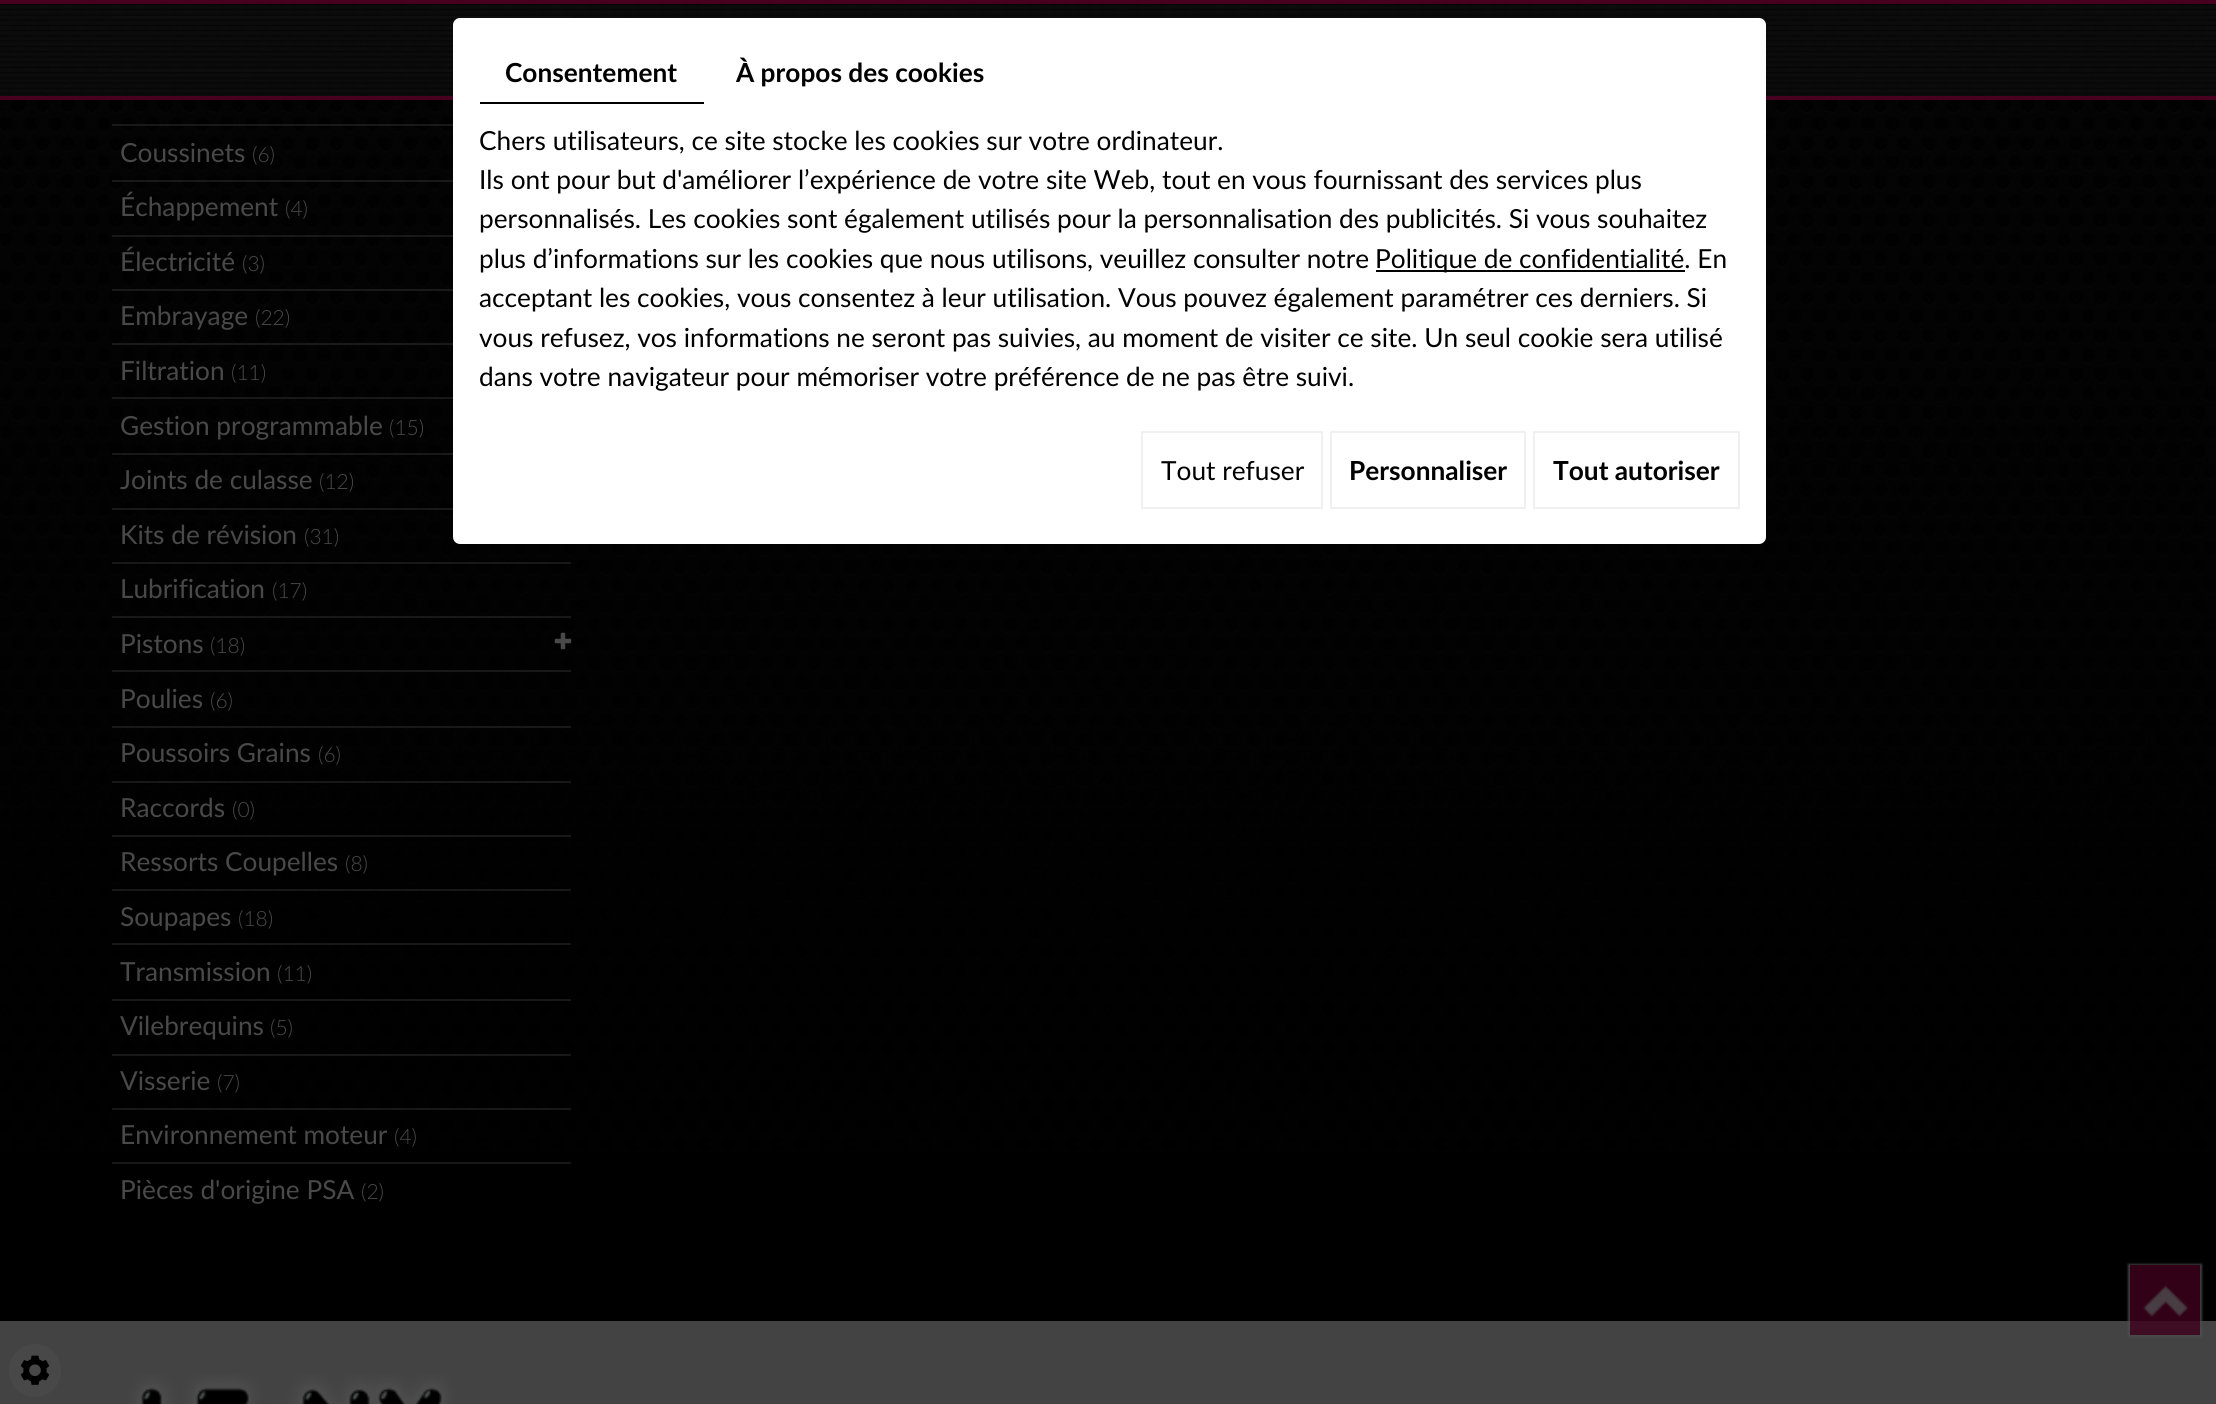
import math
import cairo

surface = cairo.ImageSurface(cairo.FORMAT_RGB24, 2216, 1404)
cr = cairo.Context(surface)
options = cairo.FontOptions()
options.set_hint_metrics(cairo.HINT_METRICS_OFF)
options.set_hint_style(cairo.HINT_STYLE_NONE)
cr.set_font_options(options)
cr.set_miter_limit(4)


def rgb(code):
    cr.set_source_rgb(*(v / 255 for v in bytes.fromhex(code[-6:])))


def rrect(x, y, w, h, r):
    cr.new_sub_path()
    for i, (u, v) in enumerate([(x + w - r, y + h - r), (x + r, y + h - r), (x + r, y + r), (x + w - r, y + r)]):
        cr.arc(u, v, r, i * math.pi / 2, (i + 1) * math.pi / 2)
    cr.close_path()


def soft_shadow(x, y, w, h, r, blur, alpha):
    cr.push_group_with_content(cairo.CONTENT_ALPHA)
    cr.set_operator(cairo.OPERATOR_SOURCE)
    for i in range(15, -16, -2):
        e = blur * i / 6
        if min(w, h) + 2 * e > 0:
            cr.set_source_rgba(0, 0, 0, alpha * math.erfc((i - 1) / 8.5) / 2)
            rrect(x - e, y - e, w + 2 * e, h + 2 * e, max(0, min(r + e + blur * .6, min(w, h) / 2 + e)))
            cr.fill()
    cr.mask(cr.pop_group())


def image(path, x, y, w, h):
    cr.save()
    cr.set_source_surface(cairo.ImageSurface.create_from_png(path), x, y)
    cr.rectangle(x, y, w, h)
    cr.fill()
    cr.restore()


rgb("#000000")
cr.paint()
image("img/1.png", 0, 4, 2216, 1149)
cr.set_source_rgba(0.302, 0.302, 0.302, 0.3)
cr.rectangle(112, 16, 459, 2)
cr.fill()
cr.rectangle(112, 70, 341, 2)
cr.fill()
cr.set_source_rgba(0.055, 0.055, 0.055, 0.84)
cr.rectangle(0, 4, 2216, 92)
cr.fill()
image("img/2.png", 0, 4, 2216, 91)
rgb("#470020")
cr.rectangle(0, 0, 2216, 4)
cr.rectangle(0, 96, 2216, 4)
cr.fill()
cr.set_source_rgba(0.302, 0.302, 0.302, 0.3)
cr.rectangle(112, 124, 341, 2)
cr.fill()
cr.rectangle(112, 180, 341, 2)
cr.fill()
cr.rectangle(112, 235, 341, 2)
cr.fill()
cr.rectangle(112, 289, 341, 2)
cr.fill()
cr.rectangle(112, 343, 341, 2)
cr.fill()
cr.rectangle(112, 397, 341, 2)
cr.fill()
cr.rectangle(112, 453, 341, 2)
cr.fill()
cr.rectangle(112, 508, 341, 2)
cr.fill()
cr.rectangle(112, 562, 459, 2)
cr.fill()
cr.rectangle(112, 616, 459, 2)
cr.fill()
image("img/3.png", 554, 632, 18, 18)
cr.rectangle(112, 670, 459, 2)
cr.fill()
cr.rectangle(112, 726, 459, 2)
cr.fill()
cr.rectangle(112, 781, 459, 2)
cr.fill()
cr.rectangle(112, 835, 459, 2)
cr.fill()
cr.rectangle(112, 889, 459, 2)
cr.fill()
rgb("#181818")
cr.rectangle(112, 943, 459, 2)
cr.fill()
cr.set_source_rgba(0.302, 0.302, 0.302, 0.3)
cr.rectangle(112, 999, 459, 2)
cr.fill()
cr.rectangle(112, 1054, 459, 2)
cr.fill()
cr.rectangle(112, 1108, 459, 2)
cr.fill()
rgb("#171717")
cr.rectangle(112, 1162, 459, 2)
cr.fill()
rgb("#434343")
cr.rectangle(0, 1321, 2216, 83)
cr.fill()
cr.save()
cr.set_fill_rule(cairo.FILL_RULE_EVEN_ODD)
cr.new_path()
cr.move_to(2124, 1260)
cr.line_to(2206, 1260)
cr.line_to(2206, 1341)
cr.line_to(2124, 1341)
cr.close_path()
cr.move_to(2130, 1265)
cr.line_to(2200, 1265)
cr.line_to(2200, 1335)
cr.line_to(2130, 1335)
cr.close_path()
cr.clip()
rgb("#4d4d4d")
soft_shadow(2128, 1264, 74, 73, 0, 1, 0.8)
cr.restore()
cr.set_source_rgba(0.247, 0, 0.114, 0.8)
cr.rectangle(2130, 1265, 70, 70)
cr.fill()
image("img/4.png", 2143, 1285, 46, 32)
image("img/5.png", 128, 1373, 326, 31)
rgb("#ffffff")
rrect(453, 18, 1313, 526, 7)
cr.fill()
rgb("#000000")
cr.rectangle(480, 102, 224, 2)
cr.fill()
cr.rectangle(1376, 270, 309, 2)
cr.fill()
cr.rectangle(1142, 432, 180, 76)
rgb("#f0f0f0")
cr.stroke()
cr.rectangle(1331, 432, 194, 76)
cr.stroke()
cr.rectangle(1534, 432, 205, 76)
cr.stroke()
rgb("#484848")
rrect(9, 1344, 52, 53, 26)
cr.fill()
image("img/6.png", 20, 1355, 30, 30)
cr.select_font_face("Lato")
cr.set_font_size(26.25)
rgb("#494949")
cr.move_to(120, 162)
cr.show_text("Coussinets")
cr.select_font_face("Lato Light")
cr.set_font_size(21)
cr.move_to(252, 162)
cr.show_text("(6)")
cr.select_font_face("Lato")
cr.set_font_size(26.25)
cr.move_to(120, 216)
cr.show_text("Échappement")
cr.select_font_face("Lato Light")
cr.set_font_size(21)
cr.move_to(285, 216)
cr.show_text("(4)")
cr.select_font_face("Lato")
cr.set_font_size(26.25)
cr.move_to(120, 271)
cr.show_text("Électricité")
cr.select_font_face("Lato Light")
cr.set_font_size(21)
cr.move_to(242, 271)
cr.show_text("(3)")
cr.select_font_face("Lato")
cr.set_font_size(26.25)
cr.move_to(120, 325)
cr.show_text("Embrayage")
cr.select_font_face("Lato Light")
cr.set_font_size(21)
cr.move_to(255, 325)
cr.show_text("(22)")
cr.select_font_face("Lato")
cr.set_font_size(26.25)
cr.move_to(120, 380)
cr.show_text("Filtration")
cr.select_font_face("Lato Light")
cr.set_font_size(21)
cr.move_to(231, 380)
cr.show_text("(11)")
cr.select_font_face("Lato")
cr.set_font_size(26.25)
cr.move_to(120, 435)
cr.show_text("Gestion programmable")
cr.select_font_face("Lato Light")
cr.set_font_size(21)
cr.move_to(389, 435)
cr.show_text("(15)")
cr.select_font_face("Lato")
cr.set_font_size(26.25)
cr.move_to(120, 489)
cr.show_text("Joints de culasse")
cr.select_font_face("Lato Light")
cr.set_font_size(21)
cr.move_to(319, 489)
cr.show_text("(12)")
cr.select_font_face("Lato")
cr.set_font_size(26.25)
cr.move_to(120, 544)
cr.show_text("Kits de révision")
cr.select_font_face("Lato Light")
cr.set_font_size(21)
cr.move_to(304, 544)
cr.show_text("(31)")
cr.select_font_face("Lato")
cr.set_font_size(26.25)
cr.move_to(120, 598)
cr.show_text("Lubrification")
cr.select_font_face("Lato Light")
cr.set_font_size(21)
cr.move_to(272, 598)
cr.show_text("(17)")
cr.select_font_face("Lato")
cr.set_font_size(26.25)
cr.move_to(120, 653)
cr.show_text("Pistons")
cr.select_font_face("Lato Light")
cr.set_font_size(21)
cr.move_to(210, 653)
cr.show_text("(18)")
cr.select_font_face("Lato")
cr.set_font_size(26.25)
cr.move_to(120, 708)
cr.show_text("Poulies")
cr.select_font_face("Lato Light")
cr.set_font_size(21)
cr.move_to(210, 708)
cr.show_text("(6)")
cr.select_font_face("Lato")
cr.set_font_size(26.25)
cr.move_to(120, 762)
cr.show_text("Poussoirs Grains")
cr.select_font_face("Lato Light")
cr.set_font_size(21)
cr.move_to(318, 762)
cr.show_text("(6)")
cr.select_font_face("Lato")
cr.set_font_size(26.25)
cr.move_to(120, 817)
cr.show_text("Raccords")
cr.select_font_face("Lato Light")
cr.set_font_size(21)
cr.move_to(232, 817)
cr.show_text("(0)")
cr.select_font_face("Lato")
cr.set_font_size(26.25)
cr.move_to(120, 871)
cr.show_text("Ressorts Coupelles")
cr.select_font_face("Lato Light")
cr.set_font_size(21)
cr.move_to(345, 871)
cr.show_text("(8)")
cr.select_font_face("Lato")
cr.set_font_size(26.25)
cr.move_to(120, 926)
cr.show_text("Soupapes")
cr.select_font_face("Lato Light")
cr.set_font_size(21)
cr.move_to(238, 926)
cr.show_text("(18)")
cr.select_font_face("Lato")
cr.set_font_size(26.25)
cr.move_to(120, 981)
cr.show_text("Transmission")
cr.select_font_face("Lato Light")
cr.set_font_size(21)
cr.move_to(277, 981)
cr.show_text("(11)")
cr.select_font_face("Lato")
cr.set_font_size(26.25)
cr.move_to(120, 1035)
cr.show_text("Vilebrequins")
cr.select_font_face("Lato Light")
cr.set_font_size(21)
cr.move_to(270, 1035)
cr.show_text("(5)")
cr.select_font_face("Lato")
cr.set_font_size(26.25)
cr.move_to(120, 1090)
cr.show_text("Visserie")
cr.select_font_face("Lato Light")
cr.set_font_size(21)
cr.move_to(217, 1090)
cr.show_text("(7)")
cr.select_font_face("Lato")
cr.set_font_size(26.25)
cr.move_to(120, 1144)
cr.show_text("Environnement moteur")
cr.select_font_face("Lato Light")
cr.set_font_size(21)
cr.move_to(394, 1144)
cr.show_text("(4)")
cr.select_font_face("Lato")
cr.set_font_size(26.25)
cr.move_to(120, 1199)
cr.show_text("Pièces d'origine PSA")
cr.select_font_face("Lato Light")
cr.set_font_size(21)
cr.move_to(361, 1199)
cr.show_text("(2)")
cr.select_font_face("Lato", cairo.FONT_SLANT_NORMAL, cairo.FONT_WEIGHT_BOLD)
cr.set_font_size(26.25)
rgb("#000000")
cr.move_to(505, 82)
cr.show_text("Consentement")
cr.move_to(736, 82)
cr.show_text("À propos des cookies")
cr.select_font_face("Lato")
for x, y, s in [
    (479, 150, "Chers utilisateurs, ce site stocke les cookies sur votre ordinateur."),
    (479, 189, "Ils ont pour but d'améliorer l’expérience de votre site Web, tout en vous fournissant des services plus"),
    (479, 228, "personnalisés. Les cookies sont également utilisés pour la personnalisation des publicités. Si vous souhaitez"),
    (479, 268, "plus d’informations sur les cookies que nous utilisons, veuillez consulter notre"),
    (1375, 268, "Politique de confidentialité. En"),
    (479, 307, "acceptant les cookies, vous consentez à leur utilisation. Vous pouvez également paramétrer ces derniers. Si"),
    (479, 347, "vous refusez, vos informations ne seront pas suivies, au moment de visiter ce site. Un seul cookie sera utilisé"),
    (479, 386, "dans votre navigateur pour mémoriser votre préférence de ne pas être suivi."),
    (1161, 480, "Tout refuser"),
]:
    cr.move_to(x, y)
    cr.show_text(s)
cr.select_font_face("Lato", cairo.FONT_SLANT_NORMAL, cairo.FONT_WEIGHT_BOLD)
cr.move_to(1349, 480)
cr.show_text("Personnaliser")
cr.move_to(1553, 480)
cr.show_text("Tout autoriser")
surface.write_to_png("page.png")
